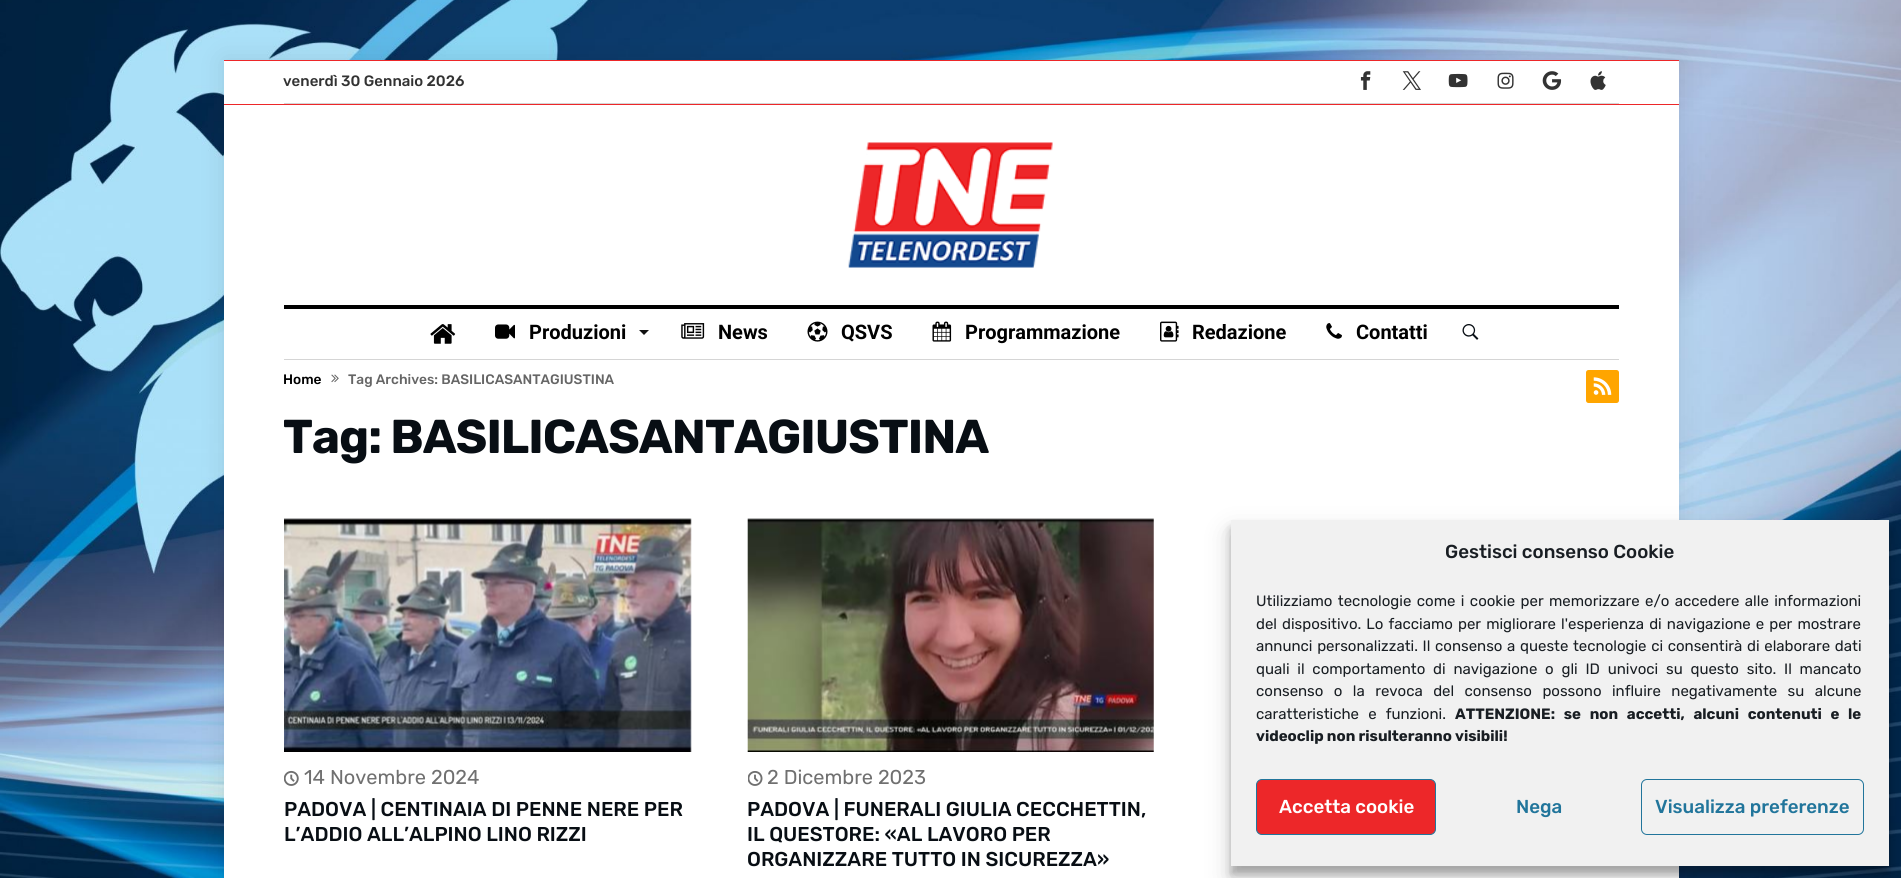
import math
import cairo

surface = cairo.ImageSurface(cairo.FORMAT_RGB24, 1901, 878)
cr = cairo.Context(surface)
options = cairo.FontOptions()
options.set_hint_metrics(cairo.HINT_METRICS_OFF)
options.set_hint_style(cairo.HINT_STYLE_NONE)
cr.set_font_options(options)
cr.set_miter_limit(4)


def rgb(code):
    cr.set_source_rgb(*(v / 255 for v in bytes.fromhex(code[-6:])))


def tracked(x, y, s, letter, word):
    cr.move_to(x, y)
    for ch in s:
        cr.show_text(ch)
        cr.rel_move_to(letter + word * (ch == ' '), 0)


def rrect(x, y, w, h, r):
    cr.new_sub_path()
    for i, (u, v) in enumerate([(x + w - r, y + h - r), (x + r, y + h - r), (x + r, y + r), (x + w - r, y + r)]):
        cr.arc(u, v, r, i * math.pi / 2, (i + 1) * math.pi / 2)
    cr.close_path()


def soft_shadow(x, y, w, h, r, blur, alpha):
    cr.push_group_with_content(cairo.CONTENT_ALPHA)
    cr.set_operator(cairo.OPERATOR_SOURCE)
    for i in range(15, -16, -2):
        e = blur * i / 6
        if min(w, h) + 2 * e > 0:
            cr.set_source_rgba(0, 0, 0, alpha * math.erfc((i - 1) / 8.5) / 2)
            rrect(x - e, y - e, w + 2 * e, h + 2 * e, max(0, min(r + e + blur * .6, min(w, h) / 2 + e)))
            cr.fill()
    cr.mask(cr.pop_group())


def image(path, x, y, w, h):
    cr.save()
    cr.set_source_surface(cairo.ImageSurface.create_from_png(path), x, y)
    cr.rectangle(x, y, w, h)
    cr.fill()
    cr.restore()


rgb("#ffffff")
cr.paint()
image("img/1.png", 0, 0, 1901, 878)
rgb("#000000")
soft_shadow(224, 60, 1455, 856, 0, 12.5, 0.1)
for x, y, w, h, color in [
    (224, 60, 1455, 1, "#ed2729"),
    (224, 61, 1455, 817, "#ffffff"),
    (224, 104, 1455, 1, "#ed2729"),
    (284, 103, 1335, 1, "#d5d5d5"),
]:
    rgb(color)
    cr.rectangle(x, y, w, h)
    cr.fill()
image("img/2.png", 1360, 71, 11, 19)
image("img/3.png", 1402, 71, 19, 19)
image("img/4.png", 1448, 73, 20, 15)
image("img/5.png", 1497, 72, 17, 17)
image("img/6.png", 1542, 71, 20, 19)
image("img/7.png", 1590, 71, 16, 19)
image("img/8.png", 848, 142, 205, 126)
rgb("#000000")
cr.rectangle(284, 305, 1335, 4)
cr.fill()
rgb("#d5d5d5")
cr.rectangle(284, 359, 1335, 1)
cr.fill()
image("img/9.png", 430, 324, 26, 20)
image("img/10.png", 495, 324, 20, 15)
rgb("#111111")
cr.new_path()
cr.move_to(639, 330)
cr.line_to(649, 330)
cr.line_to(644, 335)
cr.close_path()
cr.fill()
image("img/11.png", 681, 323, 24, 16)
image("img/12.png", 807, 321, 21, 21)
image("img/13.png", 932, 321, 20, 21)
image("img/14.png", 1160, 321, 19, 21)
image("img/15.png", 1326, 323, 16, 16)
image("img/16.png", 1462, 324, 17, 16)
image("img/17.png", 331, 374, 8, 9)
rgb("#ffa500")
rrect(1586, 370, 33, 33, 2.5)
cr.fill()
image("img/18.png", 1593, 377, 19, 18)
image("img/19.png", 284, 518, 408, 234)
image("img/20.png", 284, 770, 15, 16)
image("img/21.png", 747, 518, 407, 234)
image("img/22.png", 748, 771, 15, 15)
rgb("#000000")
soft_shadow(1231, 528, 658, 346, 0, 4, 0.23)
soft_shadow(1231, 533, 658, 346, 0, 12.5, 0.19)
rgb("#f1f1f1")
cr.rectangle(1231, 520, 658, 346)
cr.fill()
rgb("#ed2729")
rrect(1256.5, 779.5, 179, 55, 5.5)
cr.fill_preserve()
rgb("#21759b")
cr.set_line_width(1)
cr.stroke()
rrect(1641.5, 779.5, 222, 55, 5.5)
cr.stroke()
cr.select_font_face("Rubik Medium")
cr.set_font_size(15)
rgb("#333333")
cr.move_to(283, 86)
cr.show_text("venerdì 30 Gennaio 2026")
cr.select_font_face("Roboto", cairo.FONT_SLANT_NORMAL, cairo.FONT_WEIGHT_BOLD)
cr.set_font_size(20)
rgb("#000000")
for x, y, s in [
    (529, 339, "Produzioni"),
    (718, 339, "News"),
    (841, 339, "QSVS"),
    (965, 339, "Programmazione"),
    (1192, 339, "Redazione"),
    (1356, 339, "Contatti"),
]:
    cr.move_to(x, y)
    cr.show_text(s)
cr.select_font_face("Rubik Medium")
cr.set_font_size(13.75)
cr.move_to(283, 384)
cr.show_text("Home")
rgb("#666666")
cr.move_to(348, 384)
cr.show_text("Tag Archives: BASILICASANTAGIUSTINA")
cr.select_font_face("Rubik", cairo.FONT_SLANT_NORMAL, cairo.FONT_WEIGHT_BOLD)
cr.set_font_size(47.5)
rgb("#080e14")
tracked(283, 453, "Tag: BASILICASANTAGIUSTINA", -0.95, 0)
cr.select_font_face("Rubik")
cr.set_font_size(20)
rgb("#707070")
cr.move_to(304, 784)
cr.show_text("14 Novembre 2024")
cr.select_font_face("Rubik Medium")
rgb("#080e14")
cr.move_to(284, 816)
cr.show_text("PADOVA | CENTINAIA DI PENNE NERE PER")
cr.move_to(284, 841)
cr.show_text("L’ADDIO ALL’ALPINO LINO RIZZI")
cr.select_font_face("Rubik")
rgb("#707070")
cr.move_to(767, 784)
cr.show_text("2 Dicembre 2023")
cr.select_font_face("Rubik Medium")
rgb("#080e14")
for x, y, s in [
    (747, 816, "PADOVA | FUNERALI GIULIA CECCHETTIN,"),
    (747, 841, "IL QUESTORE: «AL LAVORO PER"),
    (747, 866, "ORGANIZZARE TUTTO IN SICUREZZA»"),
]:
    cr.move_to(x, y)
    cr.show_text(s)
cr.set_font_size(18.75)
rgb("#191e23")
cr.move_to(1445, 558)
cr.show_text("Gestisci consenso Cookie")
cr.select_font_face("Rubik")
cr.set_font_size(15)
tracked(1256, 606, "Utilizziamo tecnologie come i cookie per memorizzare e/o accedere alle informazioni", 0, 1.75)
tracked(1256, 629, "del dispositivo. Lo facciamo per migliorare l'esperienza di navigazione e per mostrare", 0, 1.4)
tracked(1256, 651, "annunci personalizzati. Il consenso a queste tecnologie ci consentirà di elaborare dati", 0, 1)
tracked(1256, 674, "quali il comportamento di navigazione o gli ID univoci su questo sito. Il mancato", 0, 4.1)
tracked(1256, 696, "consenso o la revoca del consenso possono influire negativamente su alcune", 0, 6.75)
tracked(1256, 719, "caratteristiche e funzioni.", 0, 5.5)
cr.select_font_face("Rubik", cairo.FONT_SLANT_NORMAL, cairo.FONT_WEIGHT_BOLD)
tracked(1455, 719, "ATTENZIONE: se non accetti, alcuni contenuti e le", 0, 5.5)
cr.move_to(1256, 741)
cr.show_text("videoclip non risulteranno visibili!")
cr.select_font_face("Rubik Medium")
cr.set_font_size(18.75)
rgb("#ffffff")
cr.move_to(1279, 813)
cr.show_text("Accetta cookie")
rgb("#21759b")
cr.move_to(1516, 813)
cr.show_text("Nega")
cr.move_to(1655, 813)
cr.show_text("Visualizza preferenze")
surface.write_to_png("page.png")
